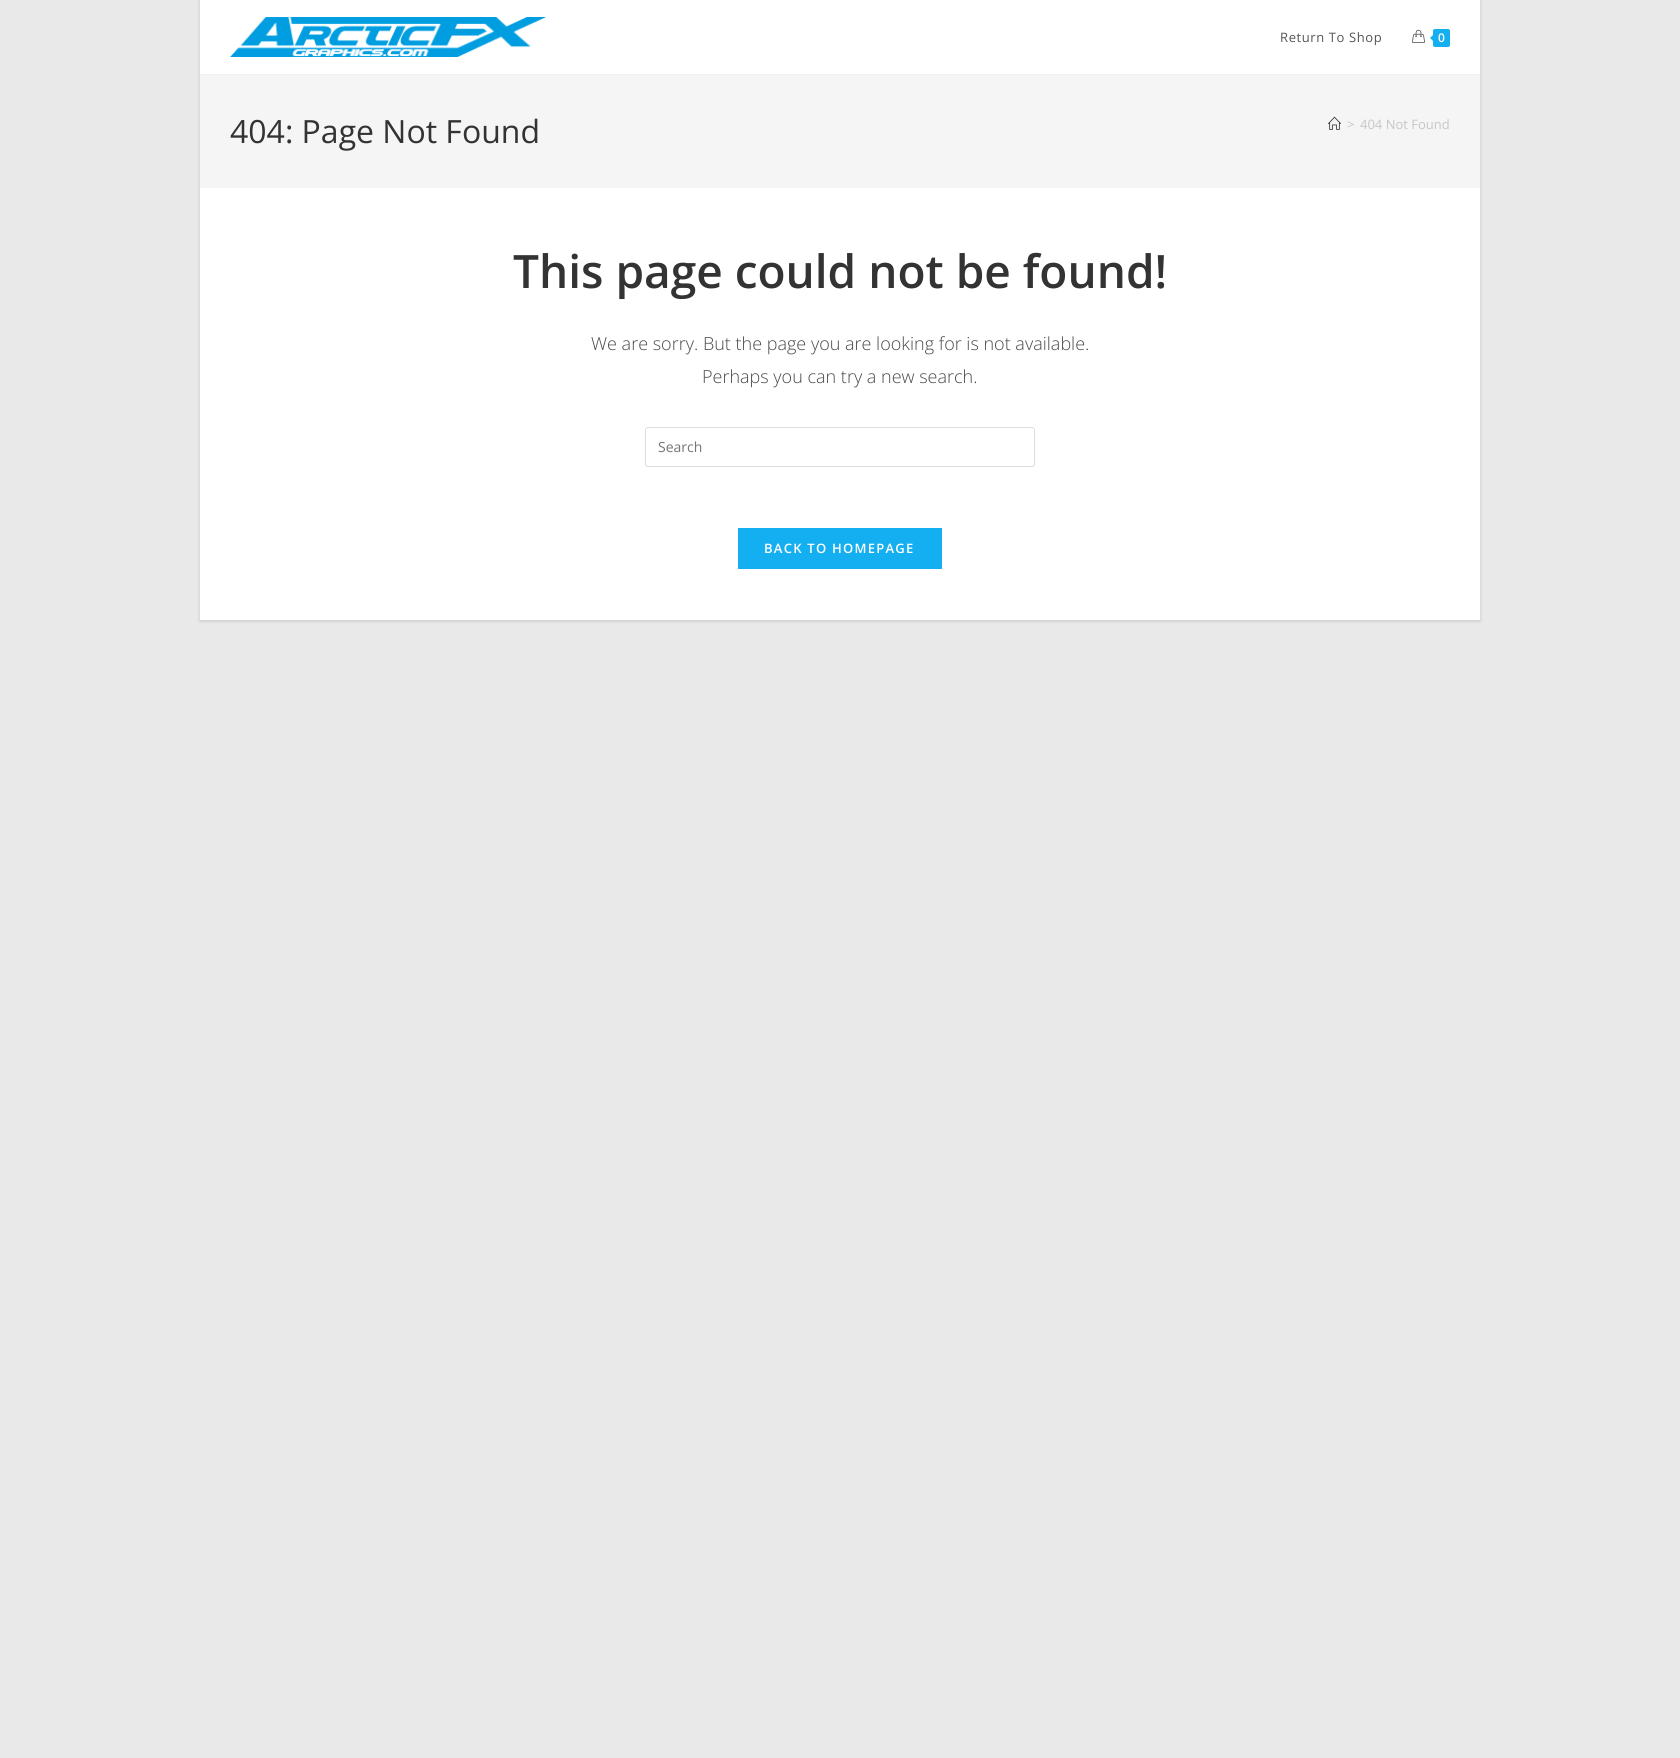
import math
import cairo

surface = cairo.ImageSurface(cairo.FORMAT_RGB24, 1680, 1758)
cr = cairo.Context(surface)
options = cairo.FontOptions()
options.set_hint_metrics(cairo.HINT_METRICS_OFF)
options.set_hint_style(cairo.HINT_STYLE_NONE)
cr.set_font_options(options)
cr.set_miter_limit(4)


def rgb(code):
    cr.set_source_rgb(*(v / 255 for v in bytes.fromhex(code[-6:])))


def tracked(x, y, s, letter, word):
    cr.move_to(x, y)
    for ch in s:
        cr.show_text(ch)
        cr.rel_move_to(letter + word * (ch == ' '), 0)


def rrect(x, y, w, h, r):
    cr.new_sub_path()
    for i, (u, v) in enumerate([(x + w - r, y + h - r), (x + r, y + h - r), (x + r, y + r), (x + w - r, y + r)]):
        cr.arc(u, v, r, i * math.pi / 2, (i + 1) * math.pi / 2)
    cr.close_path()


def soft_shadow(x, y, w, h, r, blur, alpha):
    cr.push_group_with_content(cairo.CONTENT_ALPHA)
    cr.set_operator(cairo.OPERATOR_SOURCE)
    for i in range(15, -16, -2):
        e = blur * i / 6
        if min(w, h) + 2 * e > 0:
            cr.set_source_rgba(0, 0, 0, alpha * math.erfc((i - 1) / 8.5) / 2)
            rrect(x - e, y - e, w + 2 * e, h + 2 * e, max(0, min(r + e + blur * .6, min(w, h) / 2 + e)))
            cr.fill()
    cr.mask(cr.pop_group())


def image(path, x, y, w, h):
    cr.save()
    cr.set_source_surface(cairo.ImageSurface.create_from_png(path), x, y)
    cr.rectangle(x, y, w, h)
    cr.fill()
    cr.restore()


rgb("#e9e9e9")
cr.paint()
rgb("#000000")
soft_shadow(200, 1, 1280, 620, 0, 2, 0.15)
rgb("#ffffff")
cr.rectangle(200, 0, 1280, 620)
cr.fill()
rgb("#f1f1f1")
cr.rectangle(200, 74, 1280, 1)
cr.fill()
image("img/1.png", 230, 17, 316, 40)
image("img/2.png", 1412, 29, 13, 14)
rgb("#13aff0")
rrect(1433, 29, 17, 18, 2)
cr.fill()
cr.new_path()
cr.move_to(1435, 33)
cr.line_to(1435, 43)
cr.line_to(1430, 38)
cr.close_path()
cr.fill()
rgb("#f5f5f5")
cr.rectangle(200, 75, 1280, 113)
cr.fill()
image("img/3.png", 1328, 116, 13, 14)
rrect(645.5, 427.5, 389, 39, 2.5)
rgb("#dddddd")
cr.set_line_width(1)
cr.stroke()
rgb("#13aff0")
cr.rectangle(738, 528, 204, 41)
cr.fill()
cr.select_font_face("Open Sans")
cr.set_font_size(13)
rgb("#555555")
tracked(1280, 42, "Return To Shop", 0.6, 0)
cr.select_font_face("Open Sans SemiBold")
cr.set_font_size(12)
rgb("#ffffff")
cr.move_to(1438, 42)
cr.show_text("0")
cr.select_font_face("Open Sans")
cr.set_font_size(32)
rgb("#333333")
cr.move_to(230, 143)
cr.show_text("404: Page Not Found")
cr.set_font_size(13)
rgb("#c6c6c6")
cr.move_to(1347, 129)
cr.show_text(">")
cr.move_to(1360, 129)
cr.show_text("404 Not Found")
cr.select_font_face("Open Sans SemiBold")
cr.set_font_size(46)
rgb("#333333")
cr.move_to(513, 288)
cr.show_text("This page could not be found!")
cr.select_font_face("Open Sans Light")
cr.set_font_size(18)
rgb("#4a4a4a")
cr.move_to(591, 350)
cr.show_text("We are sorry. But the page you are looking for is not available.")
cr.move_to(702, 383)
cr.show_text("Perhaps you can try a new search.")
cr.select_font_face("Open Sans")
cr.set_font_size(14)
rgb("#757575")
cr.move_to(658, 452)
cr.show_text("Search")
cr.select_font_face("Open Sans SemiBold")
cr.set_font_size(13)
rgb("#ffffff")
tracked(764, 553, "BACK TO HOMEPAGE", 1.25, 0)
surface.write_to_png("page.png")
